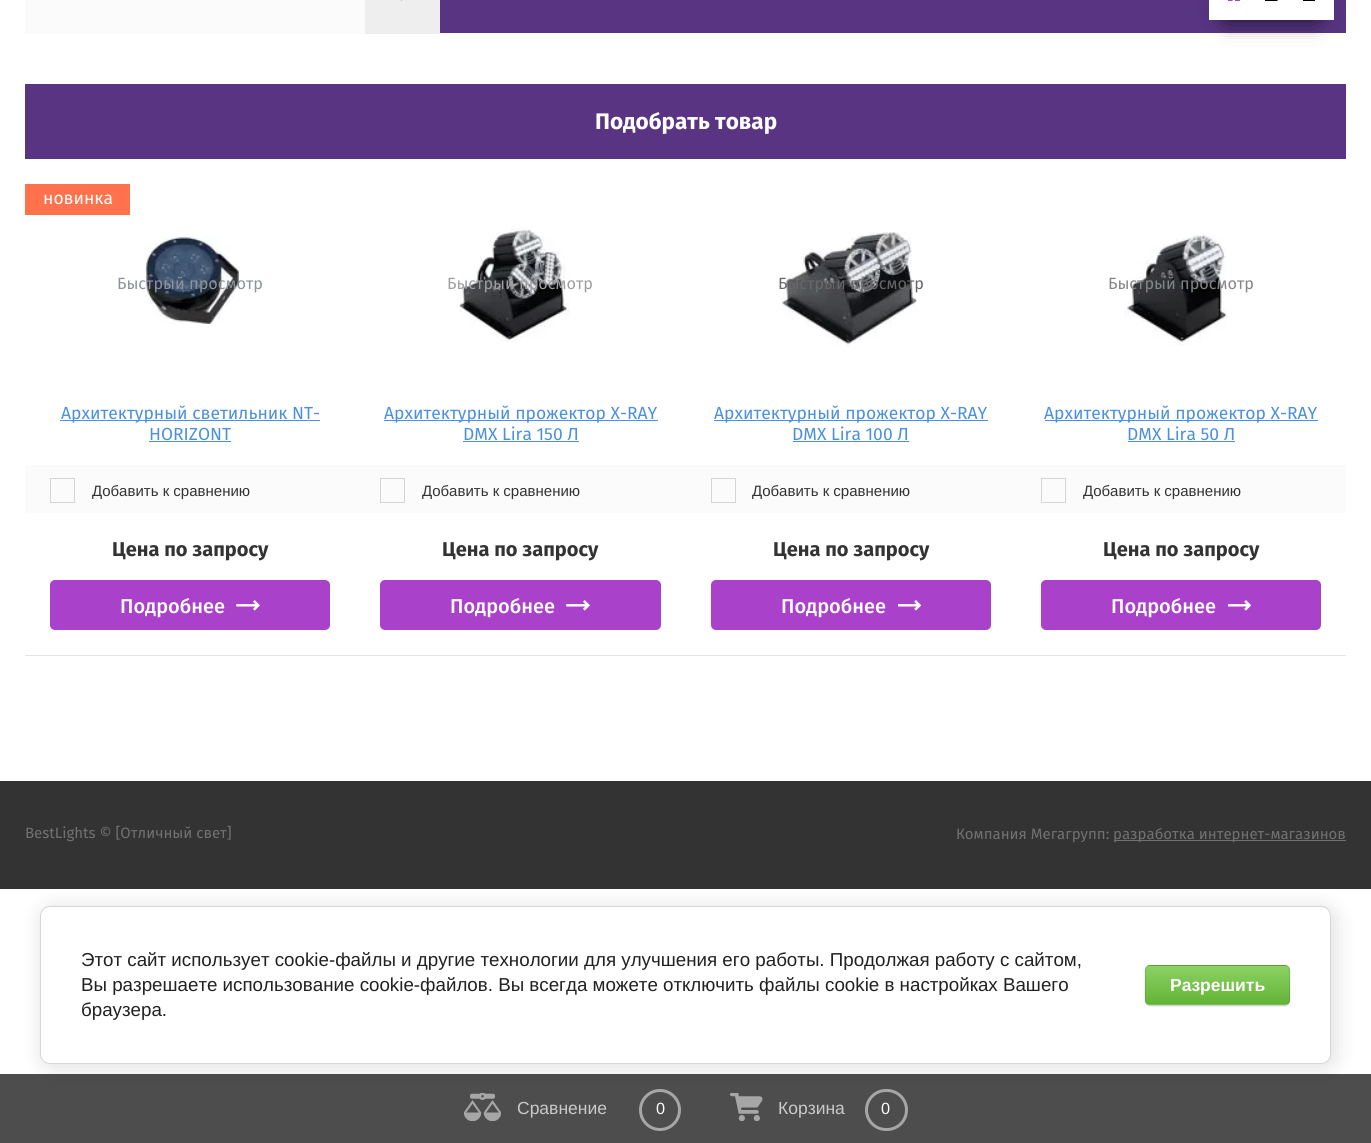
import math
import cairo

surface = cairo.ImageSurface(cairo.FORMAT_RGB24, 1371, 1143)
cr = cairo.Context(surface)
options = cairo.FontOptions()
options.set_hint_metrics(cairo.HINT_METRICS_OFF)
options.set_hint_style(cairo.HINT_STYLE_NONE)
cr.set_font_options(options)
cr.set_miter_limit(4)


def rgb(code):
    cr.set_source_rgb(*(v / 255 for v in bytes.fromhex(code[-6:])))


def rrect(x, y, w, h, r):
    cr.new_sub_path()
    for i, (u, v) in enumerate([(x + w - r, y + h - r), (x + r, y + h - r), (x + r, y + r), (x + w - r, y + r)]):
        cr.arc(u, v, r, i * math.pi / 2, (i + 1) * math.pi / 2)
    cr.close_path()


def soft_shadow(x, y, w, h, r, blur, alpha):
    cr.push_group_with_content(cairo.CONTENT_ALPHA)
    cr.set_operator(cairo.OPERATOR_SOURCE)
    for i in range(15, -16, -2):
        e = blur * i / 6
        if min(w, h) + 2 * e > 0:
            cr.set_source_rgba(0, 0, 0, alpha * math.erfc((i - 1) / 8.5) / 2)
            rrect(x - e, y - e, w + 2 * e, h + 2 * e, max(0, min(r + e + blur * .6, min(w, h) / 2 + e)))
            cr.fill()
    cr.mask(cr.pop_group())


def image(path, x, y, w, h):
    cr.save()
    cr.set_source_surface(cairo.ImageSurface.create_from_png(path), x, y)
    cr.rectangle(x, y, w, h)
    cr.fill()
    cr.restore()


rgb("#ffffff")
cr.paint()
rgb("#fbfbfb")
cr.rectangle(25, 0, 340, 34)
cr.fill()
rgb("#eeeeee")
cr.rectangle(365, 0, 75, 34)
cr.fill()
rgb("#333333")
cr.set_fill_rule(cairo.FILL_RULE_EVEN_ODD)
cr.new_path()
cr.move_to(401.5, -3)
cr.line_to(394.5, -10)
cr.line_to(392.5, -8)
cr.line_to(401.5, 0.5)
cr.line_to(410, -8)
cr.line_to(408.5, -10)
cr.close_path()
cr.fill()
rgb("#583483")
cr.rectangle(440, 0, 906, 33)
cr.fill()
rgb("#000000")
soft_shadow(1228, 4, 87, 12, 0, 12.5, 1)
rgb("#ffffff")
cr.rectangle(1209, 0, 125, 20)
cr.fill()
image("img/1.png", 1228, 0, 12, 1)
image("img/2.png", 1265, 0, 13, 1)
for x, y, w, h, color in [
    (1303, 0, 12, 1, "#000000"),
    (25, 84, 1321, 75, "#583483"),
    (25, 655, 1321, 1, "#e4e4e4"),
    (25, 184, 105, 31, "#ff724c"),
]:
    rgb(color)
    cr.rectangle(x, y, w, h)
    cr.fill()
image("img/3.png", 145, 234, 95, 90)
for x, y, w, h, color in [
    (25, 465, 1321, 48, "#fbfbfb"),
    (60, 420, 260, 1, "#4a90e2"),
    (149, 441, 82, 1, "#4a90e2"),
]:
    rgb(color)
    cr.rectangle(x, y, w, h)
    cr.fill()
cr.rectangle(50.5, 478.5, 24, 24)
rgb("#d5d5d5")
cr.set_line_width(1)
cr.stroke()
rgb("#aa41cb")
rrect(50, 580, 280, 50, 5)
cr.fill()
image("img/4.png", 236, 600, 24, 11)
image("img/5.png", 459, 227, 111, 116)
rgb("#4a90e2")
cr.rectangle(384, 420, 274, 1)
cr.fill()
cr.rectangle(463, 441, 116, 1)
cr.fill()
cr.rectangle(380.5, 478.5, 24, 24)
rgb("#d5d5d5")
cr.stroke()
rgb("#aa41cb")
rrect(380, 580, 281, 50, 5)
cr.fill()
image("img/4.png", 566, 600, 24, 11)
image("img/6.png", 782, 232, 135, 115)
rgb("#4a90e2")
cr.rectangle(714, 420, 274, 1)
cr.fill()
cr.rectangle(793, 441, 116, 1)
cr.fill()
cr.rectangle(711.5, 478.5, 24, 24)
rgb("#d5d5d5")
cr.stroke()
rgb("#aa41cb")
rrect(711, 580, 280, 50, 5)
cr.fill()
image("img/7.png", 898, 600, 23, 11)
image("img/8.png", 1124, 233, 103, 113)
rgb("#4a90e2")
cr.rectangle(1045, 420, 273, 1)
cr.fill()
cr.rectangle(1128, 441, 107, 1)
cr.fill()
cr.rectangle(1041.5, 478.5, 24, 24)
rgb("#d5d5d5")
cr.stroke()
rgb("#aa41cb")
rrect(1041, 580, 280, 50, 5)
cr.fill()
image("img/7.png", 1228, 600, 23, 11)
rgb("#4d4d4d")
cr.rectangle(0, 1074, 1371, 69)
cr.fill()
image("img/9.png", 464, 1093, 37, 28)
cr.arc(660, 1110, 19.5, 0, 2 * math.pi)
rgb("#a6a6a6")
cr.set_line_width(3)
cr.stroke()
image("img/10.png", 730, 1093, 33, 28)
rrect(866.5, 1090.5, 40, 39, 19.5)
cr.stroke()
rgb("#333333")
cr.rectangle(0, 781, 1371, 108)
cr.fill()
rgb("#717171")
cr.rectangle(1114, 840, 232, 1)
cr.fill()
rgb("#000000")
soft_shadow(43, 909, 1291, 157, 10, 11, 0.14)
rgb("#ffffff")
rrect(40.5, 906.5, 1290, 157, 9.5)
cr.fill_preserve()
rgb("#d6d6d6")
cr.set_line_width(1)
cr.stroke()
rgb("#000000")
soft_shadow(1145, 966, 145, 40, 5, 0.5, 0.2)
cr.save()
cr.set_fill_rule(cairo.FILL_RULE_WINDING)
rrect(1145, 965, 145, 40, 5)
cr.clip()
gradient = cairo.LinearGradient(1218, 929, 1218, 966)
gradient.add_color_stop_rgba(0, 0.549, 0.82, 0.392, 1)
gradient.add_color_stop_rgba(1, 0.388, 0.706, 0.208, 1)
cr.set_source(gradient)
cr.rectangle(1145, 965, 145, 1)
cr.fill()
gradient = cairo.LinearGradient(1218, 966, 1218, 1004)
gradient.add_color_stop_rgba(0, 0.549, 0.82, 0.392, 1)
gradient.add_color_stop_rgba(1, 0.388, 0.706, 0.208, 1)
cr.set_source(gradient)
cr.rectangle(1145, 966, 145, 38)
cr.fill()
gradient = cairo.LinearGradient(1218, 1004, 1218, 1041)
gradient.add_color_stop_rgba(0, 0.549, 0.82, 0.392, 1)
gradient.add_color_stop_rgba(1, 0.388, 0.706, 0.208, 1)
cr.set_source(gradient)
cr.rectangle(1145, 1004, 145, 1)
cr.fill()
cr.restore()
rrect(1145.5, 965.5, 144, 39, 4.5)
cr.set_source_rgba(0, 0, 0, 0.1)
cr.stroke()
cr.select_font_face("Fira Sans", cairo.FONT_SLANT_NORMAL, cairo.FONT_WEIGHT_BOLD)
cr.set_font_size(22.5)
rgb("#ffffff")
cr.move_to(595, 129)
cr.show_text("Подобрать товар")
cr.select_font_face("Fira Sans")
cr.set_font_size(17.5)
cr.move_to(43, 204)
cr.show_text("новинка")
cr.set_font_size(16.25)
rgb("#8c939e")
cr.move_to(117, 289)
cr.show_text("Быстрый просмотр")
cr.set_font_size(17.5)
rgb("#4a90e2")
cr.move_to(61, 419)
cr.show_text("Архитектурный светильник NT-")
cr.move_to(149, 440)
cr.show_text("HORIZONT")
cr.select_font_face("Liberation Sans")
cr.set_font_size(15)
rgb("#333333")
cr.move_to(92, 496)
cr.show_text("Добавить к сравнению")
cr.select_font_face("Fira Sans", cairo.FONT_SLANT_NORMAL, cairo.FONT_WEIGHT_BOLD)
cr.set_font_size(20)
cr.move_to(112, 556)
cr.show_text("Цена по запросу")
cr.select_font_face("Fira Sans Medium")
rgb("#ffffff")
cr.move_to(120, 613)
cr.show_text("Подробнее")
cr.select_font_face("Fira Sans")
cr.set_font_size(16.25)
rgb("#9d9ea0")
cr.move_to(447, 289)
cr.show_text("Быстрый просмотр")
cr.set_font_size(17.5)
rgb("#4a90e2")
cr.move_to(384, 419)
cr.show_text("Архитектурный прожектор X-RAY")
cr.move_to(463, 440)
cr.show_text("DMX Lira 150 Л")
cr.select_font_face("Liberation Sans")
cr.set_font_size(15)
rgb("#333333")
cr.move_to(422, 496)
cr.show_text("Добавить к сравнению")
cr.select_font_face("Fira Sans", cairo.FONT_SLANT_NORMAL, cairo.FONT_WEIGHT_BOLD)
cr.set_font_size(20)
cr.move_to(442, 556)
cr.show_text("Цена по запросу")
cr.select_font_face("Fira Sans Medium")
rgb("#ffffff")
cr.move_to(450, 613)
cr.show_text("Подробнее")
cr.select_font_face("Fira Sans")
cr.set_font_size(16.25)
rgb("#66676a")
cr.move_to(778, 289)
cr.show_text("Быстрый просмотр")
cr.set_font_size(17.5)
rgb("#4a90e2")
cr.move_to(714, 419)
cr.show_text("Архитектурный прожектор X-RAY")
cr.move_to(792, 440)
cr.show_text("DMX Lira 100 Л")
cr.select_font_face("Liberation Sans")
cr.set_font_size(15)
rgb("#333333")
cr.move_to(752, 496)
cr.show_text("Добавить к сравнению")
cr.select_font_face("Fira Sans", cairo.FONT_SLANT_NORMAL, cairo.FONT_WEIGHT_BOLD)
cr.set_font_size(20)
cr.move_to(773, 556)
cr.show_text("Цена по запросу")
cr.select_font_face("Fira Sans Medium")
rgb("#ffffff")
cr.move_to(781, 613)
cr.show_text("Подробнее")
cr.select_font_face("Fira Sans")
cr.set_font_size(16.25)
rgb("#848587")
cr.move_to(1108, 289)
cr.show_text("Быстрый просмотр")
cr.set_font_size(17.5)
rgb("#4a90e2")
cr.move_to(1044, 419)
cr.show_text("Архитектурный прожектор X-RAY")
cr.move_to(1127, 440)
cr.show_text("DMX Lira 50 Л")
cr.select_font_face("Liberation Sans")
cr.set_font_size(15)
rgb("#333333")
cr.move_to(1083, 496)
cr.show_text("Добавить к сравнению")
cr.select_font_face("Fira Sans", cairo.FONT_SLANT_NORMAL, cairo.FONT_WEIGHT_BOLD)
cr.set_font_size(20)
cr.move_to(1103, 556)
cr.show_text("Цена по запросу")
cr.select_font_face("Fira Sans Medium")
rgb("#ffffff")
cr.move_to(1111, 613)
cr.show_text("Подробнее")
cr.select_font_face("Liberation Sans")
cr.set_font_size(17.5)
rgb("#cacaca")
cr.move_to(517, 1114)
cr.show_text("Сравнение")
cr.set_font_size(16.25)
rgb("#ffffff")
cr.move_to(656, 1114)
cr.show_text("0")
cr.set_font_size(17.5)
rgb("#cacaca")
cr.move_to(778, 1114)
cr.show_text("Корзина")
cr.set_font_size(16.25)
rgb("#ffffff")
cr.move_to(881, 1114)
cr.show_text("0")
cr.select_font_face("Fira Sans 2")
cr.set_font_size(15)
rgb("#717171")
for x, y, s in [
    (25, 838, "BestLights © [Отличный свет]"),
    (956, 839, "Компания Мегагрупп:"),
    (1113, 839, "разработка интернет-магазинов"),
]:
    cr.move_to(x, y)
    cr.show_text(s)
cr.select_font_face("Liberation Sans")
cr.set_font_size(18.75)
rgb("#212121")
for x, y, s in [
    (81, 966, "Этот сайт использует cookie-файлы и другие технологии для улучшения его работы. Продолжая работу с сайтом,"),
    (81, 991, "Вы разрешаете использование cookie-файлов. Вы всегда можете отключить файлы cookie в настройках Вашего"),
    (81, 1016, "браузера."),
]:
    cr.move_to(x, y)
    cr.show_text(s)
cr.select_font_face("Liberation Sans", cairo.FONT_SLANT_NORMAL, cairo.FONT_WEIGHT_BOLD)
cr.set_font_size(17.5)
rgb("#ffffff")
cr.move_to(1170, 991)
cr.show_text("Разрешить")
surface.write_to_png("page.png")
